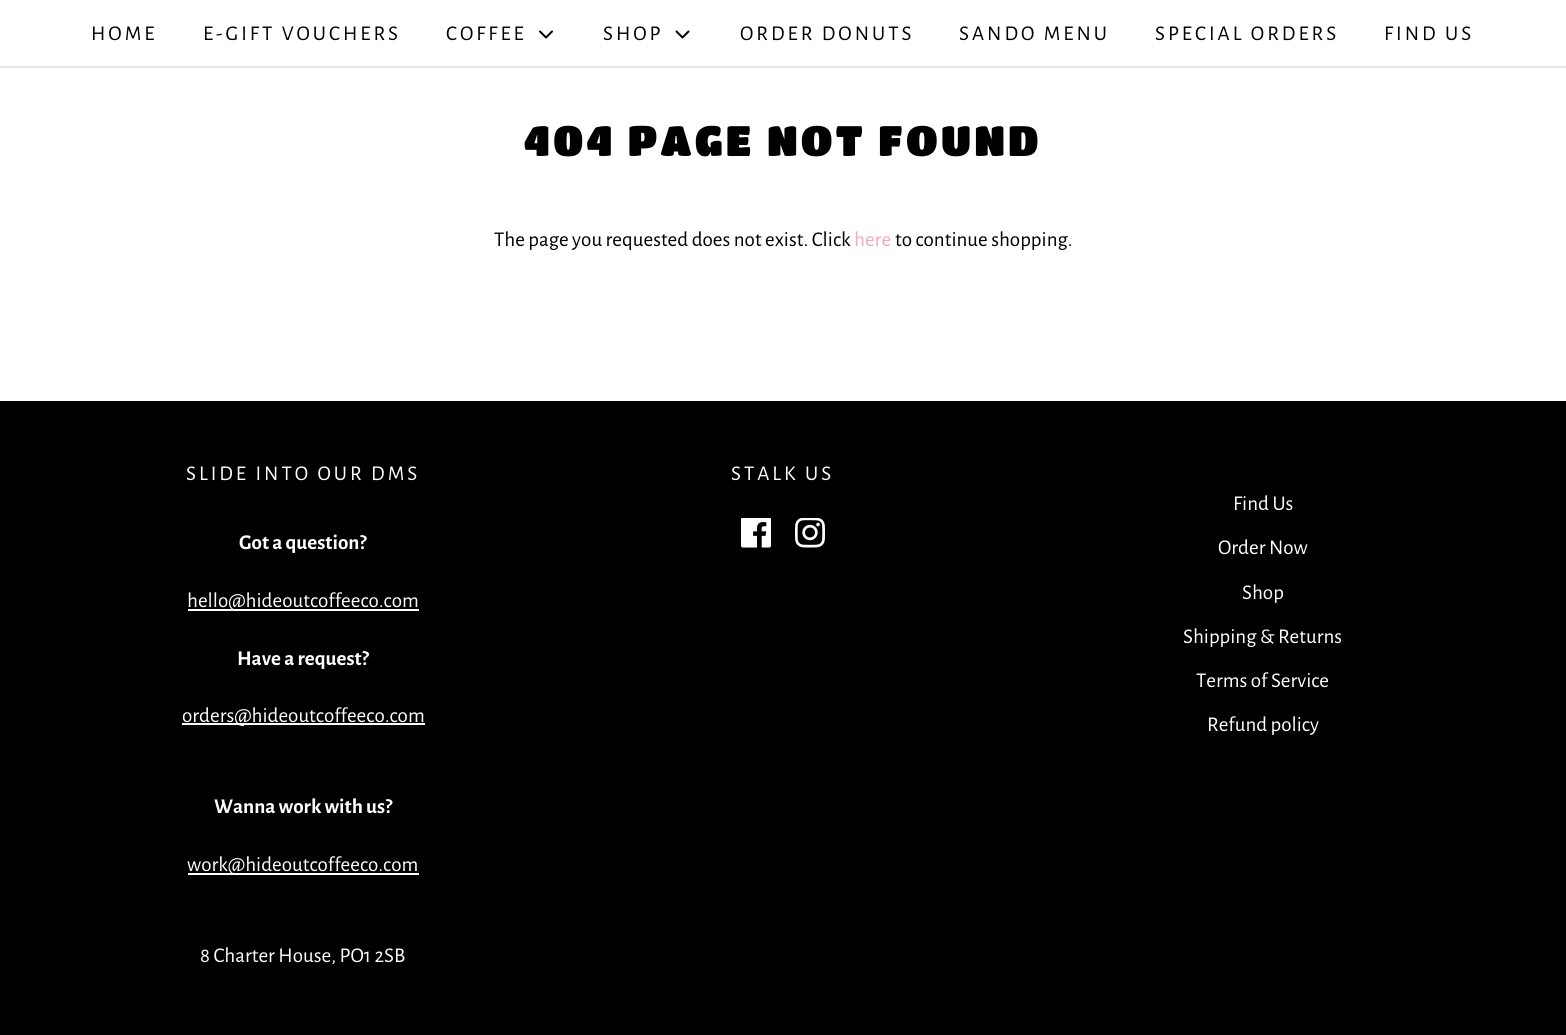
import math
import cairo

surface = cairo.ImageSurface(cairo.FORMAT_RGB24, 1566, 1035)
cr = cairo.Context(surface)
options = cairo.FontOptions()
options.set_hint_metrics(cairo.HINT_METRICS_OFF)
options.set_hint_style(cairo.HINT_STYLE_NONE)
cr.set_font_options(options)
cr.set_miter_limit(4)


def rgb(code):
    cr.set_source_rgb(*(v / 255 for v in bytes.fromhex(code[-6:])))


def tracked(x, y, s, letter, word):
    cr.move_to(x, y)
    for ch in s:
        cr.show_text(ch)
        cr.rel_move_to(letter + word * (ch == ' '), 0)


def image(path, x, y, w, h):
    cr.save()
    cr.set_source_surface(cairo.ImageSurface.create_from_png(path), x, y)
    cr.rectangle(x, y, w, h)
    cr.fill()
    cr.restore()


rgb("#ffffff")
cr.paint()
rgb("#e6e6e6")
cr.rectangle(0, 66, 1566, 2)
cr.fill()
cr.new_path()
cr.move_to(540, 31.5)
cr.line_to(546, 37.5)
cr.line_to(552, 31.5)
rgb("#000000")
cr.set_line_cap(cairo.LINE_CAP_ROUND)
cr.set_line_join(cairo.LINE_JOIN_ROUND)
cr.stroke()
cr.new_path()
cr.move_to(676.5, 31.5)
cr.line_to(682.5, 37.5)
cr.line_to(688.5, 31.5)
cr.stroke()
for x, y, w, h, color in [
    (0, 401, 1566, 634, "#000000"),
    (188, 609, 231, 2, "#ffffff"),
    (182, 723, 243, 2, "#ffffff"),
    (188, 873, 231, 2, "#ffffff"),
]:
    rgb(color)
    cr.rectangle(x, y, w, h)
    cr.fill()
image("img/1.png", 741, 518, 30, 30)
image("img/2.png", 795, 518, 30, 30)
cr.select_font_face("Alegreya Sans")
cr.set_font_size(21)
rgb("#000000")
for x, y, s in [
    (91, 40, "HOME"),
    (203, 40, "E-GIFT VOUCHERS"),
    (446, 40, "COFFEE"),
    (603, 40, "SHOP"),
    (740, 40, "ORDER DONUTS"),
    (959, 40, "SANDO MENU"),
    (1155, 40, "SPECIAL ORDERS"),
    (1384, 40, "FIND US"),
]:
    tracked(x, y, s, 3, 0)
cr.select_font_face("Titan One")
cr.set_font_size(42)
tracked(524, 156, "404 PAGE NOT FOUND", 3, 0)
cr.select_font_face("Alegreya Sans")
cr.set_font_size(21)
cr.move_to(494, 246)
cr.show_text("The page you requested does not exist. Click")
rgb("#f6a8ba")
cr.move_to(854, 246)
cr.show_text("here")
rgb("#000000")
cr.move_to(895, 246)
cr.show_text("to continue shopping.")
rgb("#ffffff")
tracked(186, 480, "SLIDE INTO OUR DMS", 3, 0)
cr.select_font_face("Alegreya Sans", cairo.FONT_SLANT_NORMAL, cairo.FONT_WEIGHT_BOLD)
cr.move_to(239, 549)
cr.show_text("Got a question?")
cr.select_font_face("Alegreya Sans")
cr.move_to(187, 607)
cr.show_text("hello@hideoutcoffeeco.com")
cr.select_font_face("Alegreya Sans", cairo.FONT_SLANT_NORMAL, cairo.FONT_WEIGHT_BOLD)
cr.move_to(237, 665)
cr.show_text("Have a request?")
cr.select_font_face("Alegreya Sans")
cr.move_to(182, 722)
cr.show_text("orders@hideoutcoffeeco.com")
cr.select_font_face("Alegreya Sans", cairo.FONT_SLANT_NORMAL, cairo.FONT_WEIGHT_BOLD)
cr.move_to(214, 813)
cr.show_text("Wanna work with us?")
cr.select_font_face("Alegreya Sans")
cr.move_to(187, 871)
cr.show_text("work@hideoutcoffeeco.com")
cr.move_to(200, 962)
cr.show_text("8 Charter House, PO1 2SB")
tracked(731, 480, "STALK US", 3, 0)
for x, y, s in [
    (1233, 510, "Find Us"),
    (1218, 554, "Order Now"),
    (1242, 599, "Shop"),
    (1183, 643, "Shipping & Returns"),
    (1196, 687, "Terms of Service"),
    (1207, 731, "Refund policy"),
]:
    cr.move_to(x, y)
    cr.show_text(s)
surface.write_to_png("page.png")
